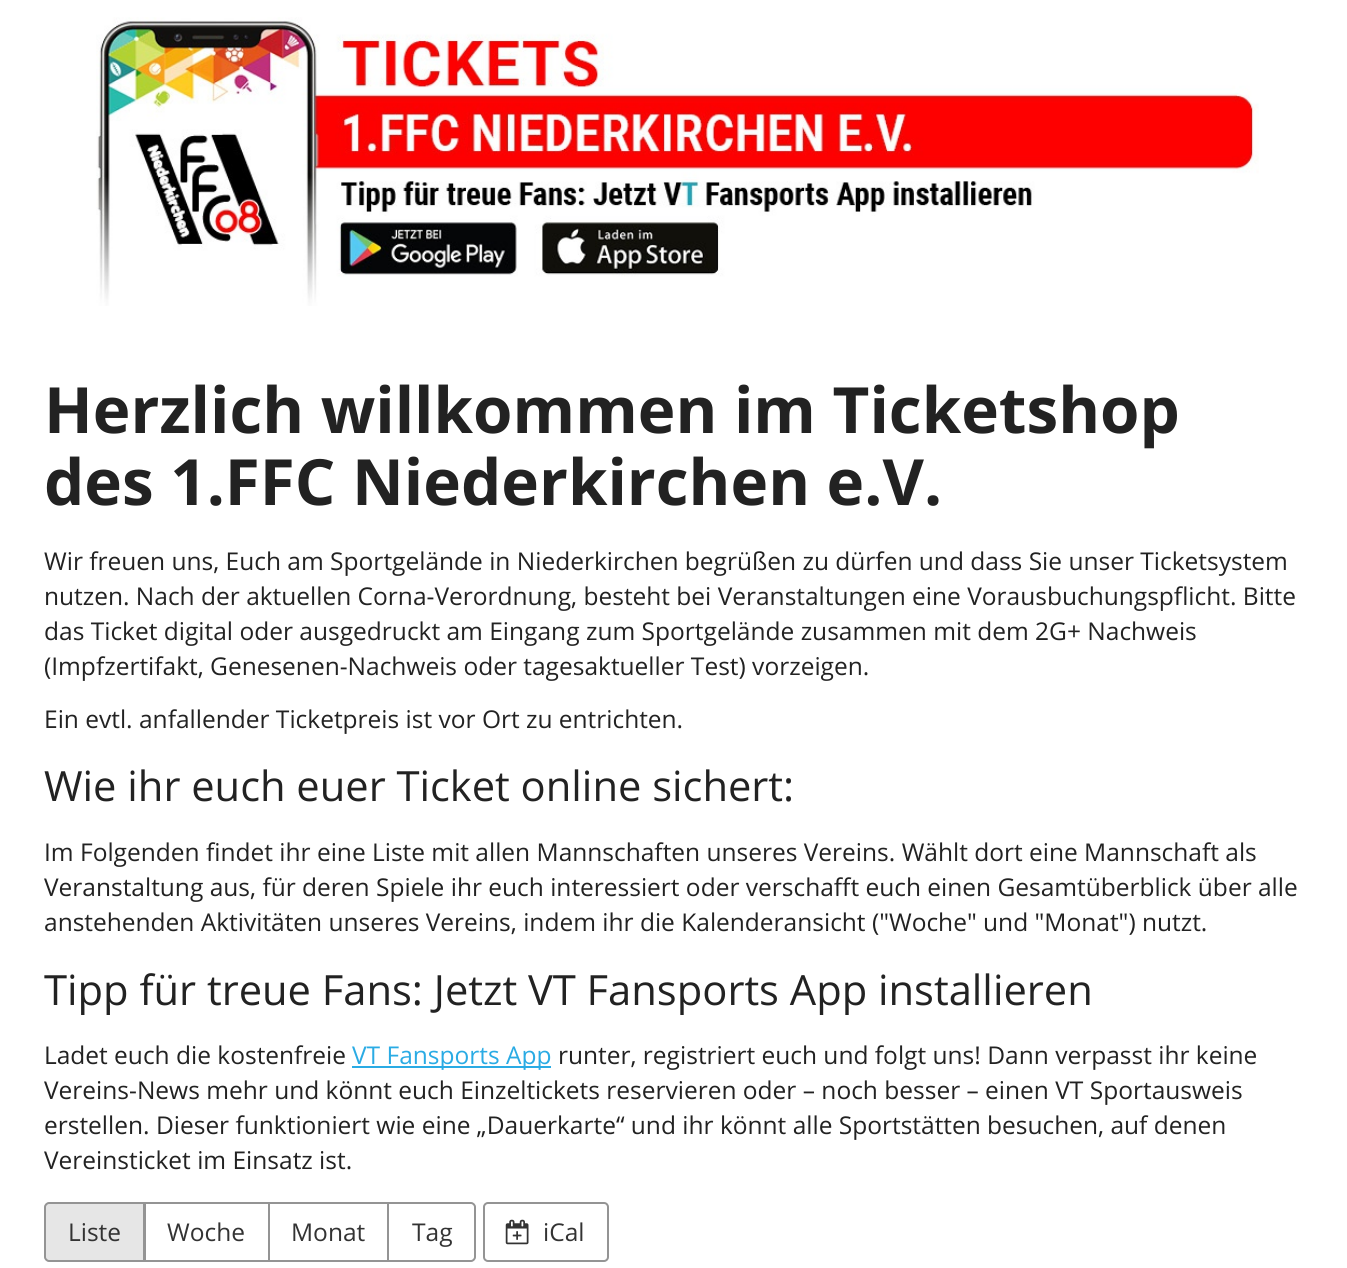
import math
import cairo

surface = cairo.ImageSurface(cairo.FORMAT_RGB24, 1347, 1268)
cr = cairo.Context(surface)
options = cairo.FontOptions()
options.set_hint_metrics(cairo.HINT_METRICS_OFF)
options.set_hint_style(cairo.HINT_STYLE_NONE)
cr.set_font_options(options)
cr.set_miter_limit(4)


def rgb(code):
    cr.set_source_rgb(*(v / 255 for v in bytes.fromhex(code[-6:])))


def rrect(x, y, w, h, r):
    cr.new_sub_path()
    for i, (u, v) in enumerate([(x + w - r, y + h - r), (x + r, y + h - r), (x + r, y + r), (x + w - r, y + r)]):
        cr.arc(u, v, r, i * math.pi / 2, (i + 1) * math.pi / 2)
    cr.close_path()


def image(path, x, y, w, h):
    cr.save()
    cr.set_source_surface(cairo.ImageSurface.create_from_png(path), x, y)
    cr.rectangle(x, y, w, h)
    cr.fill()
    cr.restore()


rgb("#ffffff")
cr.paint()
image("img/1.png", 96, 17, 1163, 289)
rgb("#2aabe4")
cr.rectangle(352, 1066, 199, 2)
cr.fill()
cr.rectangle(145, 1203, 124, 58)
rgb("#949494")
cr.stroke()
rgb("#e6e6e6")
cr.new_path()
cr.move_to(49, 1203)
cr.line_to(144, 1203)
cr.line_to(144, 1261)
cr.line_to(49, 1261)
cr.curve_to(47, 1261, 45, 1259, 45, 1257)
cr.line_to(45, 1207)
cr.curve_to(45, 1205, 47, 1203, 49, 1203)
cr.close_path()
cr.fill_preserve()
rgb("#949494")
cr.stroke()
cr.rectangle(269, 1203, 119, 58)
cr.stroke()
rgb("#ffffff")
cr.new_path()
cr.move_to(388, 1203)
cr.line_to(471, 1203)
cr.curve_to(473, 1203, 475, 1205, 475, 1207)
cr.line_to(475, 1257)
cr.curve_to(475, 1259, 473, 1261, 471, 1261)
cr.line_to(388, 1261)
cr.close_path()
cr.fill_preserve()
rgb("#949494")
cr.stroke()
rrect(484, 1203, 124, 58, 4)
cr.stroke()
image("img/2.png", 505, 1219, 24, 26)
cr.select_font_face("Open Sans", cairo.FONT_SLANT_NORMAL, cairo.FONT_WEIGHT_BOLD)
cr.set_font_size(63.75)
rgb("#222222")
cr.move_to(44, 433)
cr.show_text("Herzlich willkommen im Ticketshop")
cr.move_to(44, 505)
cr.show_text("des 1.FFC Niederkirchen e.V.")
cr.select_font_face("Open Sans")
cr.set_font_size(24.5)
for x, y, s in [
    (44, 570, "Wir freuen uns, Euch am Sportgelände in Niederkirchen begrüßen zu dürfen und dass Sie unser Ticketsystem"),
    (44, 605, "nutzen. Nach der aktuellen Corna-Verordnung, besteht bei Veranstaltungen eine Vorausbuchungspflicht. Bitte"),
    (44, 640, "das Ticket digital oder ausgedruckt am Eingang zum Sportgelände zusammen mit dem 2G+ Nachweis"),
    (44, 675, "(Impfzertifakt, Genesenen-Nachweis oder tagesaktueller Test) vorzeigen."),
    (44, 728, "Ein evtl. anfallender Ticketpreis ist vor Ort zu entrichten."),
]:
    cr.move_to(x, y)
    cr.show_text(s)
cr.set_font_size(41.65)
cr.move_to(44, 801)
cr.show_text("Wie ihr euch euer Ticket online sichert:")
cr.set_font_size(24.5)
for x, y, s in [
    (44, 861, "Im Folgenden findet ihr eine Liste mit allen Mannschaften unseres Vereins. Wählt dort eine Mannschaft als"),
    (44, 896, "Veranstaltung aus, für deren Spiele ihr euch interessiert oder verschafft euch einen Gesamtüberblick über alle"),
    (44, 931, "anstehenden Aktivitäten unseres Vereins, indem ihr die Kalenderansicht (\"Woche\" und \"Monat\") nutzt."),
]:
    cr.move_to(x, y)
    cr.show_text(s)
cr.set_font_size(41.65)
cr.move_to(44, 1005)
cr.show_text("Tipp für treue Fans: Jetzt VT Fansports App installieren")
cr.set_font_size(24.5)
cr.move_to(44, 1064)
cr.show_text("Ladet euch die kostenfreie")
rgb("#2aabe4")
cr.move_to(352, 1064)
cr.show_text("VT Fansports App")
rgb("#222222")
for x, y, s in [
    (558, 1064, "runter, registriert euch und folgt uns! Dann verpasst ihr keine"),
    (44, 1099, "Vereins-News mehr und könnt euch Einzeltickets reservieren oder – noch besser – einen VT Sportausweis"),
    (44, 1134, "erstellen. Dieser funktioniert wie eine „Dauerkarte“ und ihr könnt alle Sportstätten besuchen, auf denen"),
    (44, 1169, "Vereinsticket im Einsatz ist."),
]:
    cr.move_to(x, y)
    cr.show_text(s)
rgb("#333333")
for x, y, s in [
    (68, 1241, "Liste"),
    (167, 1241, "Woche"),
    (291, 1241, "Monat"),
    (412, 1241, "Tag"),
    (543, 1241, "iCal"),
]:
    cr.move_to(x, y)
    cr.show_text(s)
surface.write_to_png("page.png")
